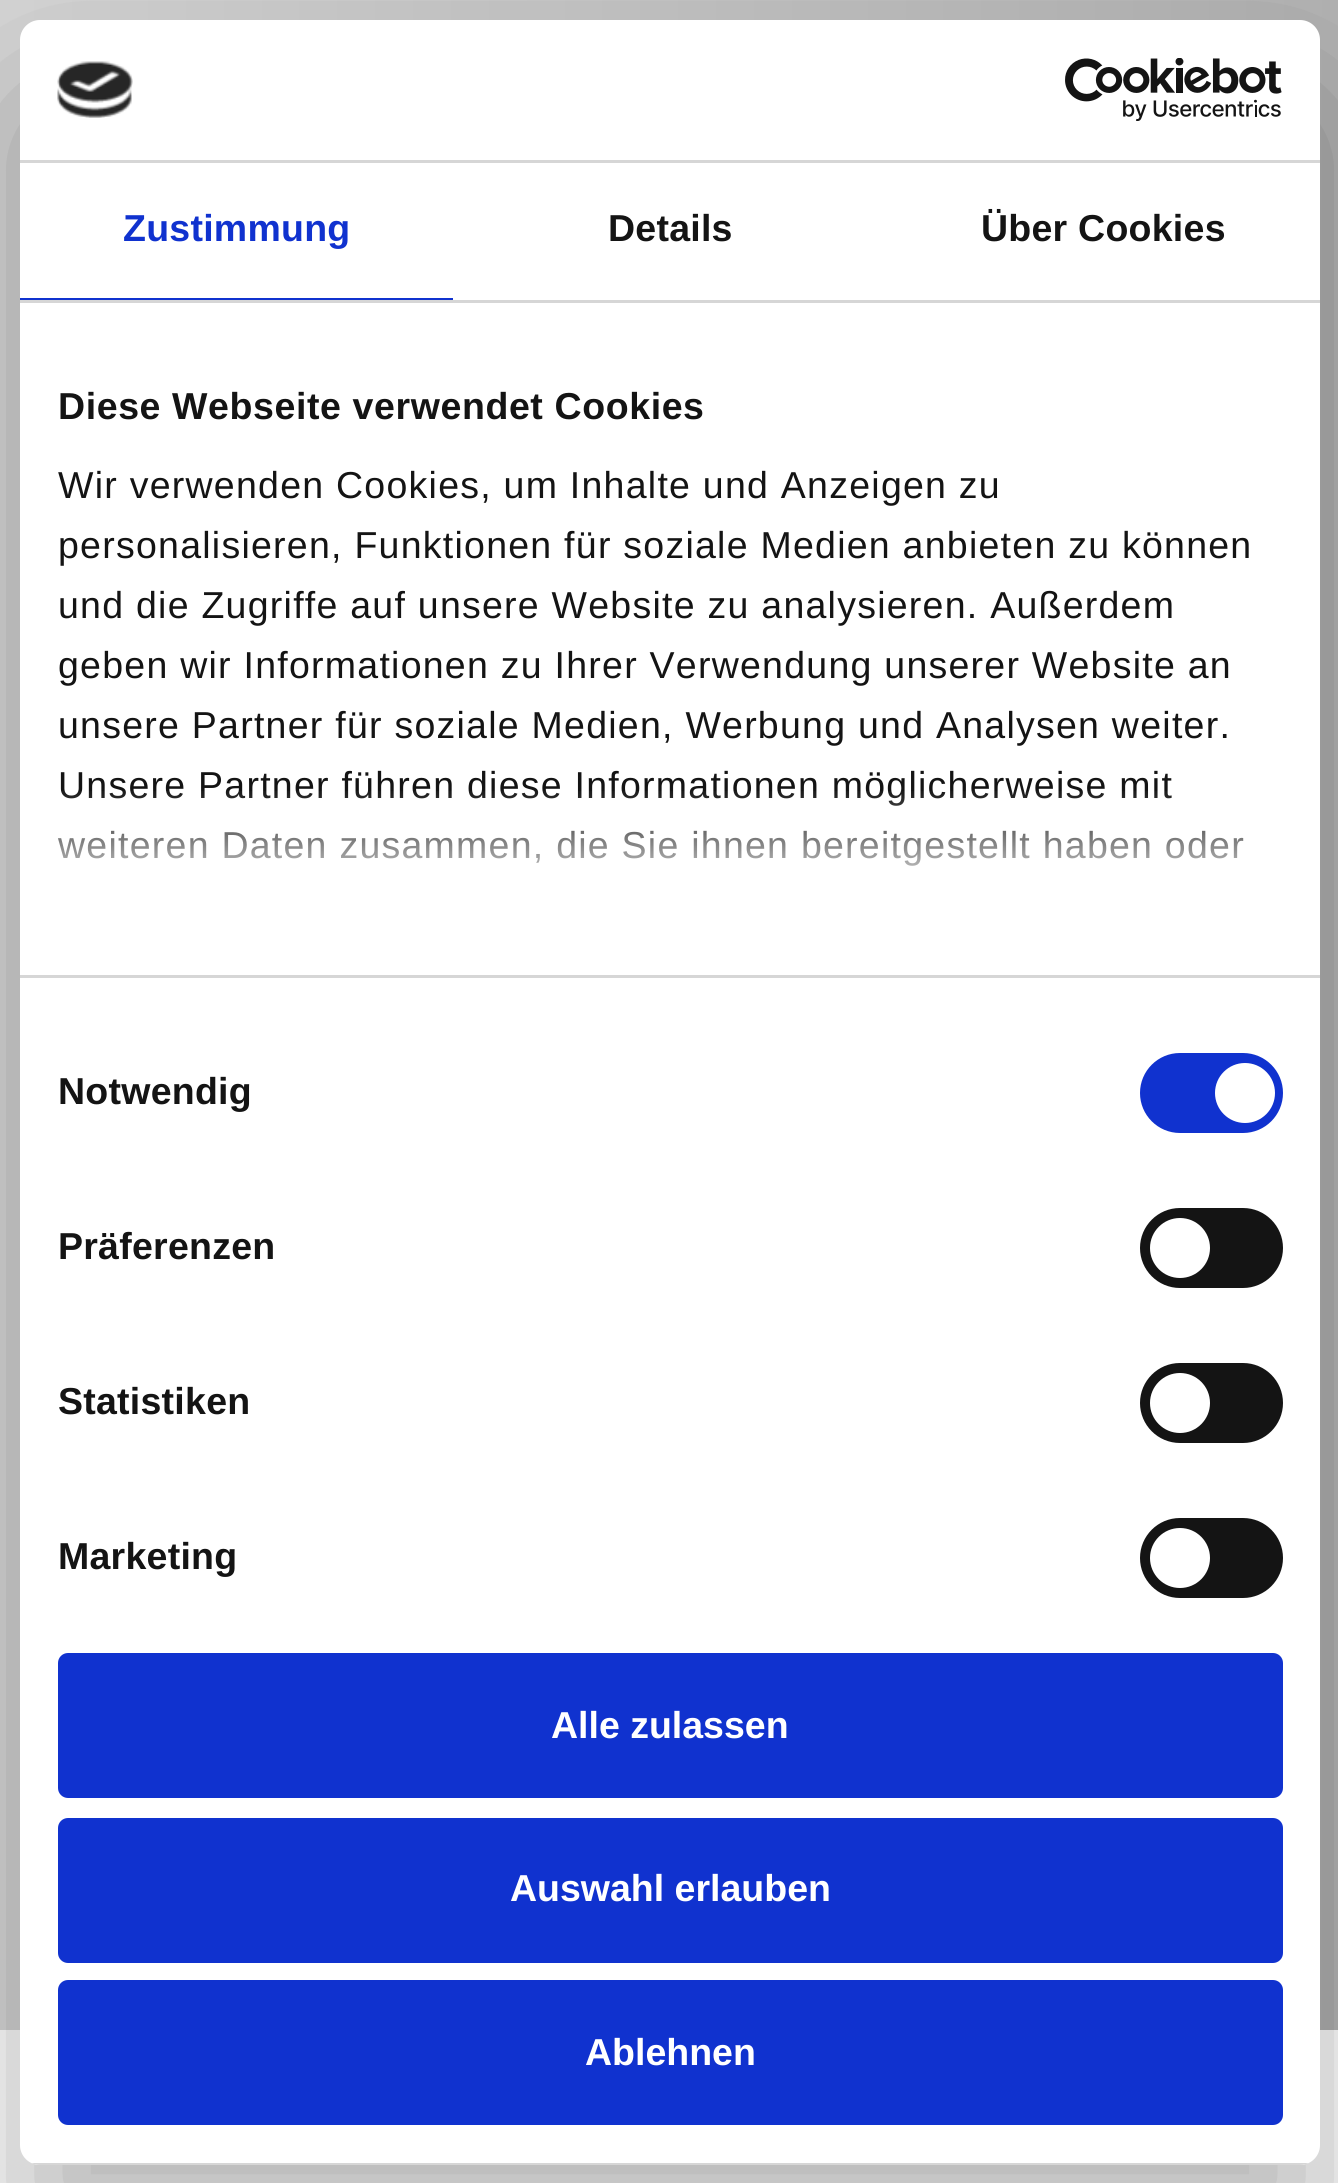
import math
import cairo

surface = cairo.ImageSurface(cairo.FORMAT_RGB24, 1338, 2183)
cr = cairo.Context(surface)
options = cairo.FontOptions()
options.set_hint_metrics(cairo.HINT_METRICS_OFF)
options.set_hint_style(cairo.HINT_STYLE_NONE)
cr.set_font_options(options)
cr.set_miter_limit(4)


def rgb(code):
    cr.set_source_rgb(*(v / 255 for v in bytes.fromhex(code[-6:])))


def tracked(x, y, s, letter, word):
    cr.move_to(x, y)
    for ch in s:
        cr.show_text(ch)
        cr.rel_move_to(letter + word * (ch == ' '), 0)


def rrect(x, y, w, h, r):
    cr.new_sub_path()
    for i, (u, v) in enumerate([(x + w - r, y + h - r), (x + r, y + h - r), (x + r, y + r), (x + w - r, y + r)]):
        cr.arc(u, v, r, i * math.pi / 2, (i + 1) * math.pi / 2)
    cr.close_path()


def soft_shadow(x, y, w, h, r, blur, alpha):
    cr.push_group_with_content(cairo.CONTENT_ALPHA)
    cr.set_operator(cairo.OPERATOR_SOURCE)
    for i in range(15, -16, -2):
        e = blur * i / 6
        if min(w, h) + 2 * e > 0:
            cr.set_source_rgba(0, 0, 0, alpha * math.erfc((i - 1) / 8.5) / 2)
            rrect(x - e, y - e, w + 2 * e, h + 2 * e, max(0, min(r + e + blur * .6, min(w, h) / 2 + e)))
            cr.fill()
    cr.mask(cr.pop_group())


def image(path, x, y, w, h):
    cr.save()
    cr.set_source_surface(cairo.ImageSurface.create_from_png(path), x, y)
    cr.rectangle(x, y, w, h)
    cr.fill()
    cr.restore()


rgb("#ffffff")
cr.paint()
gradient = cairo.LinearGradient(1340, 1015, -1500, 1015)
gradient.add_color_stop_rgba(0, 0.706, 0.706, 0.706, 1)
gradient.add_color_stop_rgba(1, 1, 1, 1, 1)
cr.set_source(gradient)
cr.rectangle(0, 0, 1338, 2030)
cr.fill()
rgb("#000000")
soft_shadow(20, 100, 1300, 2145, 20, 85, 0.3)
rgb("#ffffff")
rrect(20, 20, 1300, 2145, 20)
cr.fill()
rgb("#d6d6d6")
cr.rectangle(20, 160, 1300, 3)
cr.fill()
image("img/1.png", 57, 61, 76, 57)
image("img/2.png", 1065, 58, 217, 63)
for x, y, w, h, color in [
    (20, 300, 1300, 3, "#d6d6d6"),
    (20, 298, 433, 2, "#1032cf"),
    (20, 975, 1300, 3, "#d6d6d6"),
]:
    rgb(color)
    cr.rectangle(x, y, w, h)
    cr.fill()
rgb("#1032cf")
rrect(1140, 1053, 143, 80, 40)
cr.fill()
rgb("#ffffff")
cr.arc(1245, 1093, 30, 0, 2 * math.pi)
cr.fill()
rgb("#141414")
rrect(1140, 1208, 143, 80, 40)
cr.fill()
rgb("#ffffff")
cr.arc(1180, 1248, 30, 0, 2 * math.pi)
cr.fill()
rgb("#141414")
rrect(1140, 1363, 143, 80, 40)
cr.fill()
rgb("#ffffff")
cr.arc(1180, 1403, 30, 0, 2 * math.pi)
cr.fill()
rgb("#141414")
rrect(1140, 1518, 143, 80, 40)
cr.fill()
rgb("#ffffff")
cr.arc(1180, 1558, 30, 0, 2 * math.pi)
cr.fill()
cr.save()
rrect(20, 20, 1300, 2145, 20)
cr.clip()
rgb("#d6d6d6")
cr.rectangle(31, 2163, 1278, 2)
cr.fill()
cr.restore()
rgb("#1032cf")
rrect(60.5, 1655.5, 1220, 140, 7.5)
cr.fill_preserve()
cr.set_line_width(5)
cr.stroke()
rrect(60.5, 1820.5, 1220, 140, 7.5)
cr.fill_preserve()
cr.stroke()
rrect(60.5, 1982.5, 1220, 140, 7.5)
cr.fill_preserve()
cr.stroke()
cr.select_font_face("Liberation Sans", cairo.FONT_SLANT_NORMAL, cairo.FONT_WEIGHT_BOLD)
cr.set_font_size(37.5)
tracked(123, 241, "Zustimmung", 0.25, 0)
rgb("#141414")
tracked(608, 241, "Details", 0.25, 0)
tracked(981, 241, "Über Cookies", 0.25, 0)
tracked(58, 419, "Diese Webseite verwendet Cookies", 0.6, 0)
cr.select_font_face("Liberation Sans")
for x, y, s in [
    (58, 498, "Wir verwenden Cookies, um Inhalte und Anzeigen zu"),
    (58, 558, "personalisieren, Funktionen für soziale Medien anbieten zu können"),
    (58, 618, "und die Zugriffe auf unsere Website zu analysieren. Außerdem"),
    (58, 678, "geben wir Informationen zu Ihrer Verwendung unserer Website an"),
    (58, 738, "unsere Partner für soziale Medien, Werbung und Analysen weiter."),
    (58, 798, "Unsere Partner führen diese Informationen möglicherweise mit"),
    (58, 858, "weiteren Daten zusammen, die Sie ihnen bereitgestellt haben oder"),
]:
    tracked(x, y, s, 1.25, 0)
gradient = cairo.LinearGradient(654, 975, 654, 788)
gradient.add_color_stop_rgba(0, 1, 1, 1, 1)
gradient.add_color_stop_rgba(0.5, 1, 1, 1, 0.8)
gradient.add_color_stop_rgba(1, 1, 1, 1, 0)
cr.set_source(gradient)
cr.rectangle(57, 791, 1186, 75)
cr.fill()
cr.select_font_face("Liberation Sans", cairo.FONT_SLANT_NORMAL, cairo.FONT_WEIGHT_BOLD)
rgb("#141414")
for x, y, s in [
    (58, 1104, "Notwendig"),
    (58, 1259, "Präferenzen"),
    (58, 1414, "Statistiken"),
    (58, 1569, "Marketing"),
]:
    tracked(x, y, s, 0.25, 0)
rgb("#ffffff")
for x, y, s in [
    (551, 1738, "Alle zulassen"),
    (510, 1901, "Auswahl erlauben"),
    (585, 2065, "Ablehnen"),
]:
    cr.move_to(x, y)
    cr.show_text(s)
surface.write_to_png("page.png")
